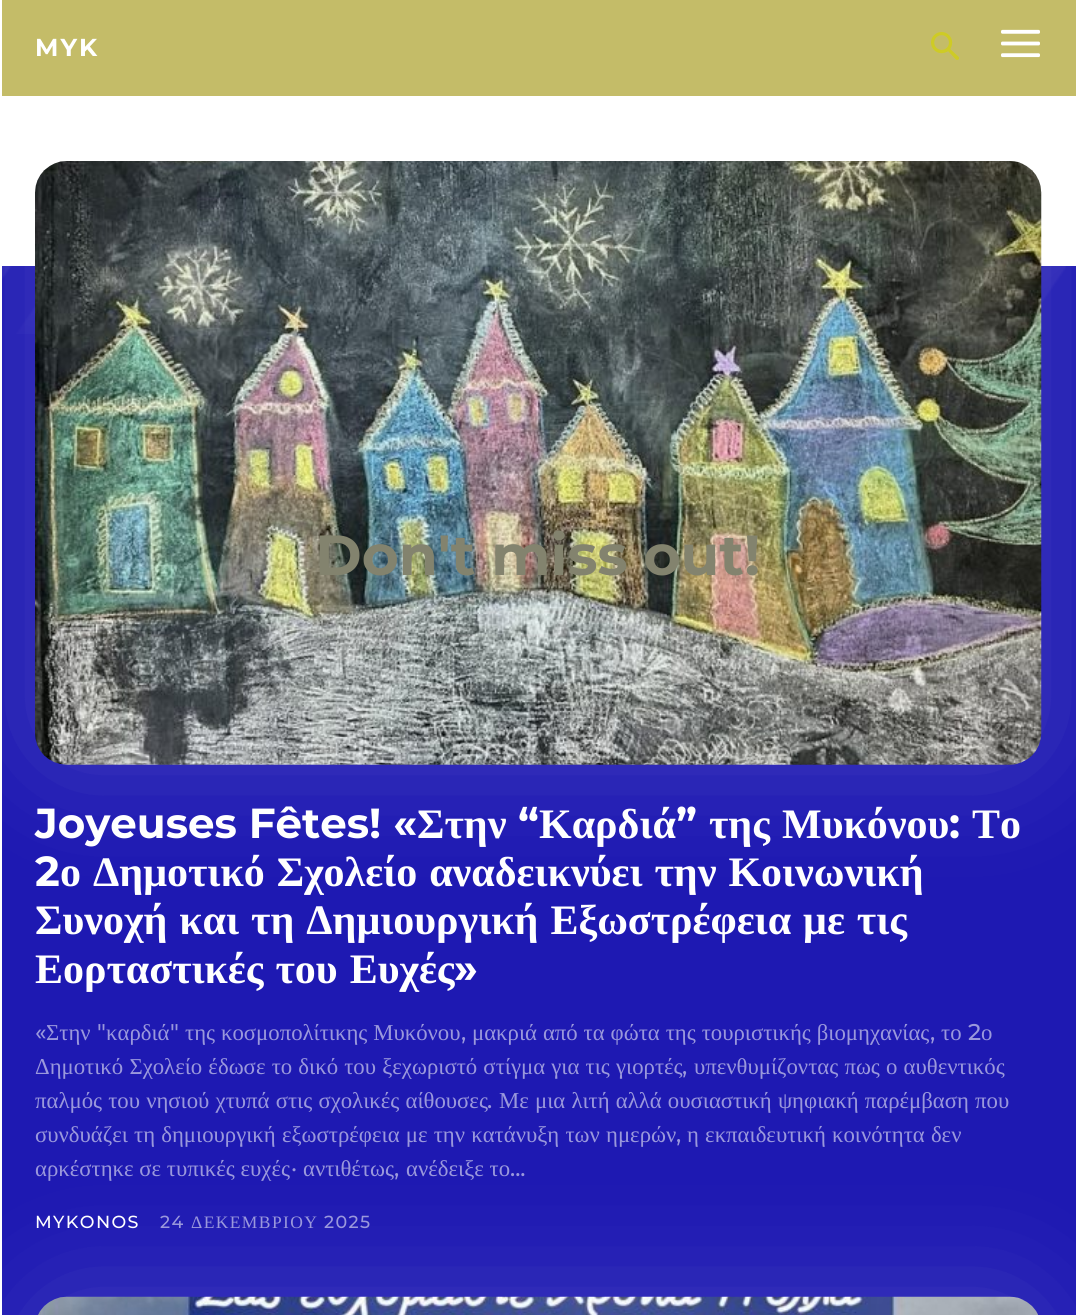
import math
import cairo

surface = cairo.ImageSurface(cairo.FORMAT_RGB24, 1076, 1315)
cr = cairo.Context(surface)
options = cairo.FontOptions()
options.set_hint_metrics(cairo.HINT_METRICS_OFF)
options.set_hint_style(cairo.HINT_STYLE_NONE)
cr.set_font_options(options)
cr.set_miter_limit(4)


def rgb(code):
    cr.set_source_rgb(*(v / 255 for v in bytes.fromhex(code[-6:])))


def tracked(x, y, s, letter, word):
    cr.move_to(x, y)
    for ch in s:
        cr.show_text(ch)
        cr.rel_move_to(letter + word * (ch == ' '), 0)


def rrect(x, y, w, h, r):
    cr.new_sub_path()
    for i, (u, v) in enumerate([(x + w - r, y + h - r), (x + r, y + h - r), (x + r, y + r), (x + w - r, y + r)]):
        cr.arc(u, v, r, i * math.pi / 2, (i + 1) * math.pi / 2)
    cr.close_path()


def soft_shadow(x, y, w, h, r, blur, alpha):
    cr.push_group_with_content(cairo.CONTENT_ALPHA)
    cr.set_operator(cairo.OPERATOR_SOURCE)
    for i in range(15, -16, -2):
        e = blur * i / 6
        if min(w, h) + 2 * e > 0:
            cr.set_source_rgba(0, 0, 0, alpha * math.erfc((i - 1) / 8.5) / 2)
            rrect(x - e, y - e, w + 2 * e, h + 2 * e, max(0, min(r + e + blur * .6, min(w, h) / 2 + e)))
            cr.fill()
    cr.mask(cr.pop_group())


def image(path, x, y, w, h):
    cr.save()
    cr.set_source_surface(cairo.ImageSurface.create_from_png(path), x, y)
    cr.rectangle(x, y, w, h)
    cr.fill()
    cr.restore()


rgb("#ffffff")
cr.paint()
rgb("#1e19b2")
cr.rectangle(2, 266, 1074, 1049)
cr.fill()
image("img/3.png", 2, 266, 1064, 68)
rgb("#ffffff")
soft_shadow(35, 161, 1006, 604, 32, 61, 0.15)
rgb("#c4bc68")
cr.rectangle(2, 0, 1074, 96)
cr.fill()
image("img/1.png", 931, 32, 28, 28)
image("img/2.png", 1001, 29, 39, 29)
image("img/4.png", 35, 161, 1007, 604)
rgb("#ffffff")
soft_shadow(35, 1297, 1006, 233, 32, 61, 0.15)
image("img/5.png", 38, 1296, 1000, 19)
cr.select_font_face("Montserrat", cairo.FONT_SLANT_NORMAL, cairo.FONT_WEIGHT_BOLD)
cr.set_font_size(24.5)
rgb("#ffffff")
tracked(35, 56, "MYK", 2, 0)
cr.set_font_size(42)
cr.move_to(35, 838)
cr.show_text("Joyeuses Fêtes! «")
cr.select_font_face("Liberation Serif", cairo.FONT_SLANT_NORMAL, cairo.FONT_WEIGHT_BOLD)
cr.move_to(417, 838)
cr.show_text("Στην")
cr.select_font_face("Montserrat", cairo.FONT_SLANT_NORMAL, cairo.FONT_WEIGHT_BOLD)
cr.move_to(518, 838)
cr.show_text("“")
cr.select_font_face("Liberation Serif", cairo.FONT_SLANT_NORMAL, cairo.FONT_WEIGHT_BOLD)
cr.move_to(539, 838)
cr.show_text("Καρδιά")
cr.select_font_face("Montserrat", cairo.FONT_SLANT_NORMAL, cairo.FONT_WEIGHT_BOLD)
cr.move_to(676, 838)
cr.show_text("”")
cr.select_font_face("Liberation Serif", cairo.FONT_SLANT_NORMAL, cairo.FONT_WEIGHT_BOLD)
cr.move_to(709, 838)
cr.show_text("της")
cr.move_to(782, 838)
cr.show_text("Μυκόνου")
cr.select_font_face("Montserrat", cairo.FONT_SLANT_NORMAL, cairo.FONT_WEIGHT_BOLD)
cr.move_to(949, 838)
cr.show_text(":")
cr.select_font_face("Liberation Serif", cairo.FONT_SLANT_NORMAL, cairo.FONT_WEIGHT_BOLD)
cr.move_to(972, 838)
cr.show_text("Το")
cr.select_font_face("Montserrat", cairo.FONT_SLANT_NORMAL, cairo.FONT_WEIGHT_BOLD)
cr.move_to(35, 886)
cr.show_text("2")
cr.select_font_face("Liberation Serif", cairo.FONT_SLANT_NORMAL, cairo.FONT_WEIGHT_BOLD)
for x, y, s in [
    (60, 886, "ο Δημοτικό Σχολείο αναδεικνύει την Κοινωνική"),
    (35, 934, "Συνοχή και τη Δημιουργική Εξωστρέφεια με τις"),
    (35, 983, "Εορταστικές του Ευχές"),
]:
    tracked(x, y, s, 0, 1.5)
cr.select_font_face("Montserrat", cairo.FONT_SLANT_NORMAL, cairo.FONT_WEIGHT_BOLD)
cr.move_to(454, 983)
cr.show_text("»")
cr.select_font_face("Montserrat Medium")
cr.set_font_size(22.75)
rgb("#9a98dc")
cr.move_to(35, 1040)
cr.show_text("«")
cr.select_font_face("Liberation Serif")
cr.move_to(46, 1040)
cr.show_text("Στην")
cr.select_font_face("Montserrat Medium")
cr.move_to(97, 1040)
cr.show_text("\"")
cr.select_font_face("Liberation Serif")
cr.move_to(106, 1040)
cr.show_text("καρδιά")
cr.select_font_face("Montserrat Medium")
cr.move_to(170, 1040)
cr.show_text("\"")
cr.select_font_face("Liberation Serif")
tracked(185, 1040, "της κοσμοπολίτικης Μυκόνου", 0, 0.25)
cr.select_font_face("Montserrat Medium")
cr.move_to(461, 1040)
cr.show_text(",")
cr.select_font_face("Liberation Serif")
tracked(472, 1040, "μακριά από τα φώτα της τουριστικής βιομηχανίας", 0, 0.25)
cr.select_font_face("Montserrat Medium")
cr.move_to(930, 1040)
cr.show_text(",")
cr.select_font_face("Liberation Serif")
cr.move_to(941, 1040)
cr.show_text("το")
cr.select_font_face("Montserrat Medium")
cr.move_to(968, 1040)
cr.show_text("2")
cr.select_font_face("Liberation Serif")
cr.move_to(981, 1040)
cr.show_text("ο")
tracked(35, 1074, "Δημοτικό Σχολείο έδωσε το δικό του ξεχωριστό στίγμα για τις γιορτές", 0, 0.5)
cr.select_font_face("Montserrat Medium")
cr.move_to(682, 1074)
cr.show_text(",")
cr.select_font_face("Liberation Serif")
tracked(694, 1074, "υπενθυμίζοντας πως ο αυθεντικός", 0, 0.5)
tracked(35, 1108, "παλμός του νησιού χτυπά στις σχολικές αίθουσες", 0, 0.5)
cr.select_font_face("Montserrat Medium")
cr.move_to(487, 1108)
cr.show_text(".")
cr.select_font_face("Liberation Serif")
tracked(499, 1108, "Με μια λιτή αλλά ουσιαστική ψηφιακή παρέμβαση που", 0, 0.5)
tracked(35, 1142, "συνδυάζει τη δημιουργική εξωστρέφεια με την κατάνυξη των ημερών", 0, 0.5)
cr.select_font_face("Montserrat Medium")
cr.move_to(676, 1142)
cr.show_text(",")
cr.select_font_face("Liberation Serif")
tracked(687, 1142, "η εκπαιδευτική κοινότητα δεν", 0, 0.5)
cr.move_to(35, 1176)
cr.show_text("αρκέστηκε σε τυπικές ευχές")
cr.select_font_face("Montserrat Medium")
cr.move_to(291, 1176)
cr.show_text("·")
cr.select_font_face("Liberation Serif")
cr.move_to(303, 1176)
cr.show_text("αντιθέτως")
cr.move_to(406, 1176)
cr.show_text("ανέδειξε το")
cr.select_font_face("Montserrat Medium")
cr.move_to(394, 1176)
cr.show_text(",")
cr.move_to(510, 1176)
cr.show_text("...")
cr.set_font_size(17.5)
rgb("#ffffff")
tracked(35, 1228, "MYKONOS", 1.4, 0)
rgb("#9a98dc")
tracked(160, 1228, "24", 1.4, 0)
cr.select_font_face("Liberation Serif")
tracked(191, 1228, "ΔΕΚΕΜΒΡΙΟΥ", 1.4, 0)
cr.select_font_face("Montserrat Medium")
tracked(324, 1228, "2025", 1.4, 0)
cr.select_font_face("Montserrat", cairo.FONT_SLANT_NORMAL, cairo.FONT_WEIGHT_BOLD)
cr.set_font_size(56.5)
rgb("#83836e")
cr.move_to(315, 575)
cr.show_text("Don't miss out!")
surface.write_to_png("page.png")
